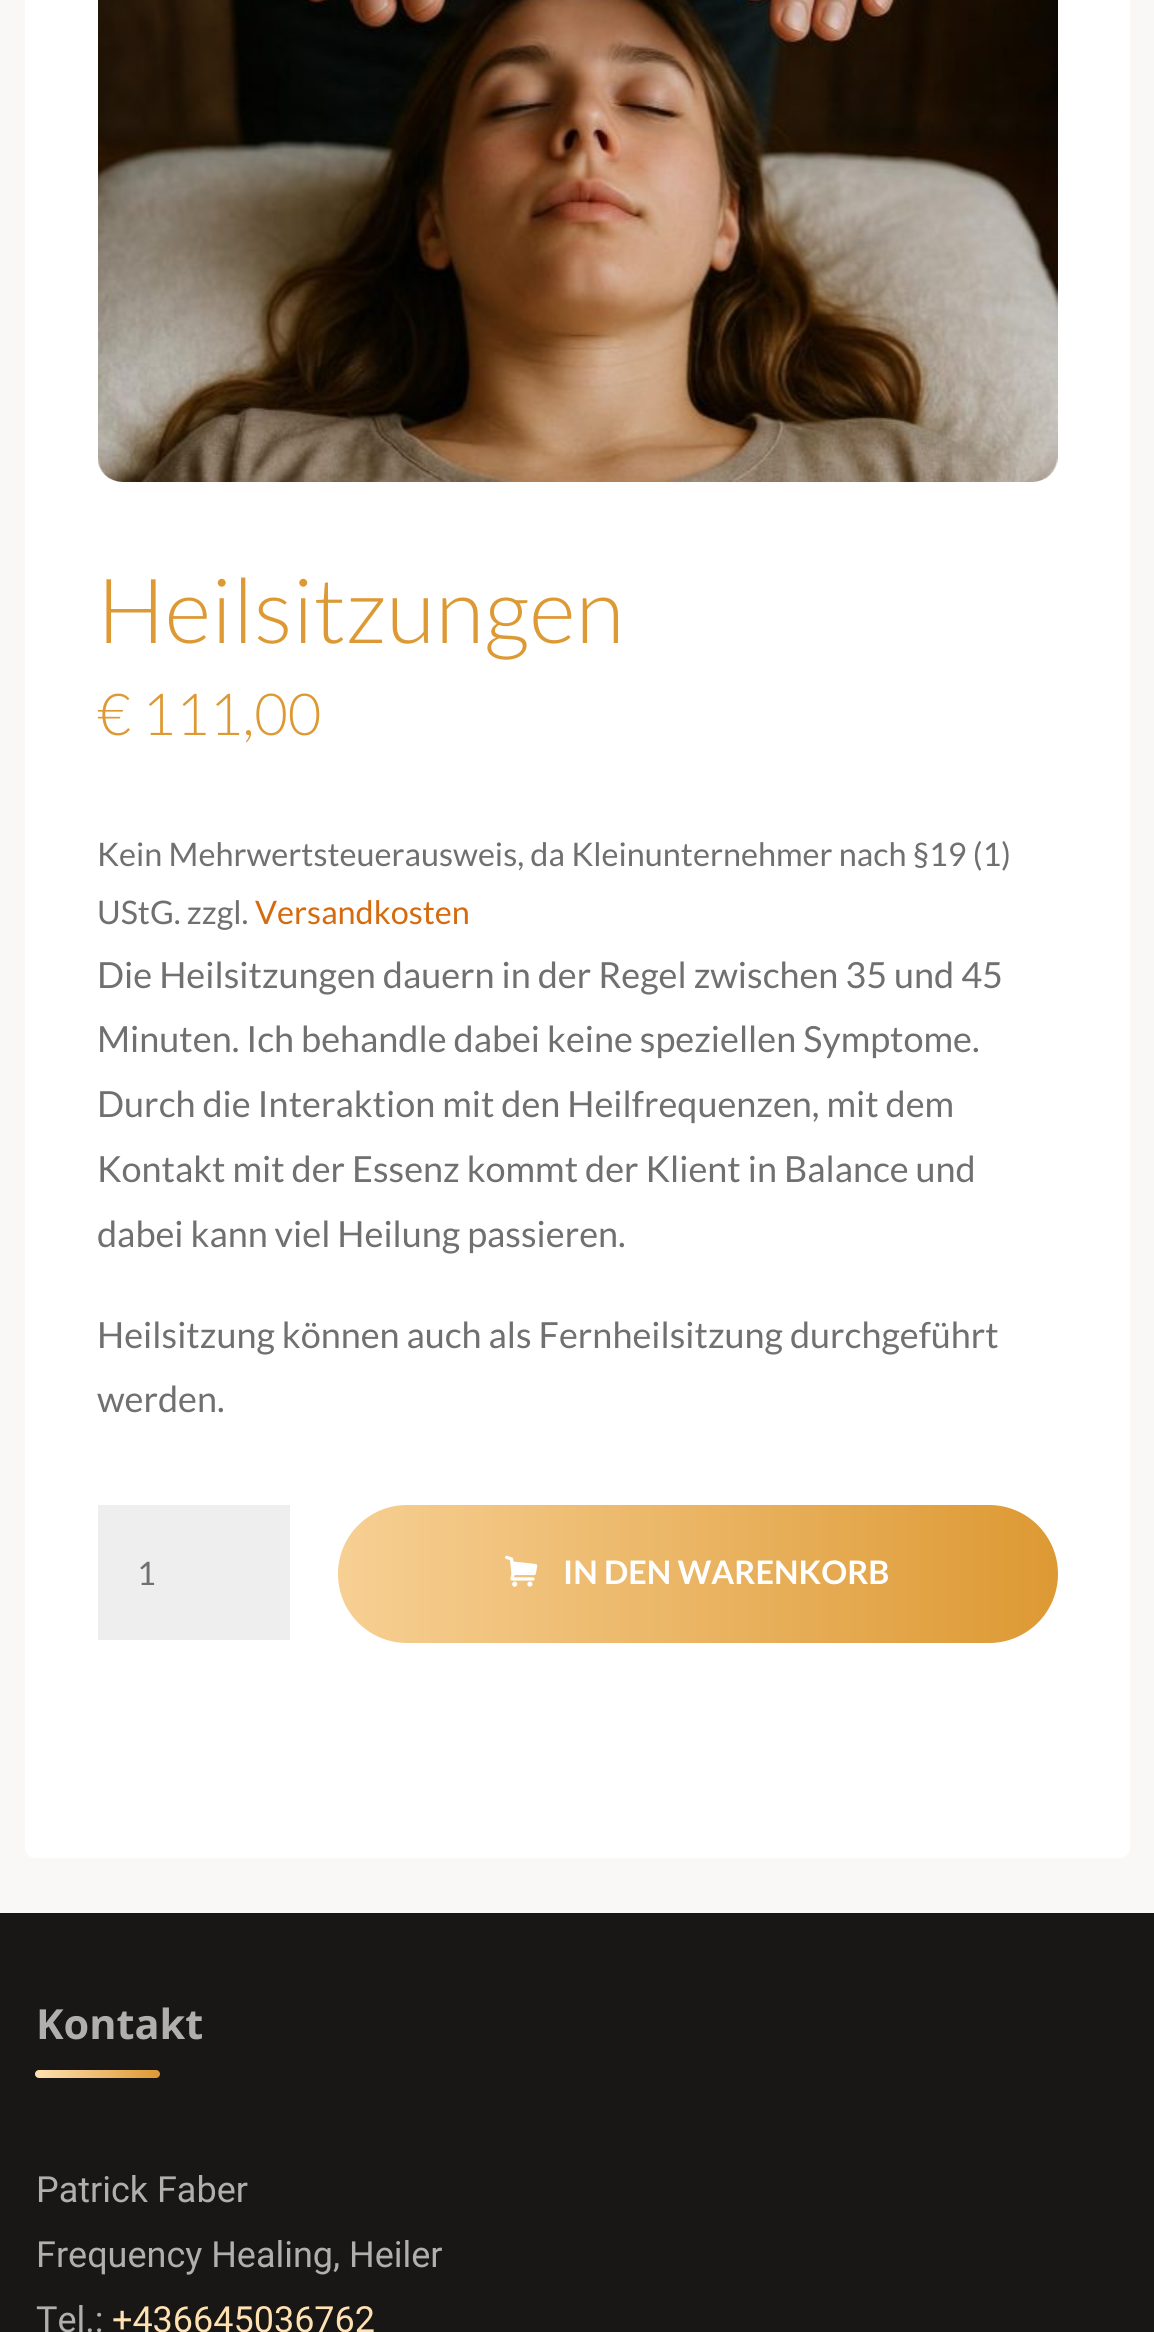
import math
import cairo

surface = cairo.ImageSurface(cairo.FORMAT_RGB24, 1154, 2332)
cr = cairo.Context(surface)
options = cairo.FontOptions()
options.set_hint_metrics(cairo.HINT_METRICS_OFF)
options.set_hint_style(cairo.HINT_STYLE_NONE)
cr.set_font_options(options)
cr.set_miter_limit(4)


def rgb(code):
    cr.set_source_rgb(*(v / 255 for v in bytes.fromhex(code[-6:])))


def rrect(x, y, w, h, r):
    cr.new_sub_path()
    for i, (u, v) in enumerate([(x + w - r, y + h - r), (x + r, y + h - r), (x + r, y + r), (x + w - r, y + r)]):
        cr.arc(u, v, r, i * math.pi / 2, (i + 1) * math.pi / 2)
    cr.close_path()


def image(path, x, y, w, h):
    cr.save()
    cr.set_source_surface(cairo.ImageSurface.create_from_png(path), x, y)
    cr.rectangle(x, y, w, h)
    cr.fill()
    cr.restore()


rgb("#f9f8f6")
cr.paint()
rgb("#ffffff")
rrect(25, -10, 1105, 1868, 10)
cr.fill()
image("img/1.png", 98, 0, 960, 482)
rgb("#eeeeee")
cr.rectangle(98, 1505, 192, 135)
cr.fill()
gradient = cairo.LinearGradient(-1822, 1574, 1058, 1574)
gradient.add_color_stop_rgba(0, 1, 0.882, 0.698, 1)
gradient.add_color_stop_rgba(0.33, 0.867, 0.6, 0.2, 1)
gradient.add_color_stop_rgba(0.67, 1, 0.882, 0.698, 1)
gradient.add_color_stop_rgba(1, 0.867, 0.6, 0.2, 1)
cr.set_source(gradient)
rrect(338, 1505, 720, 138, 69)
cr.fill()
image("img/2.png", 505, 1555, 33, 32)
rgb("#191716")
cr.rectangle(0, 1913, 1154, 419)
cr.fill()
gradient = cairo.LinearGradient(35, 2074, 160, 2074)
gradient.add_color_stop_rgba(0, 1, 0.882, 0.698, 1)
gradient.add_color_stop_rgba(1, 0.867, 0.6, 0.2, 1)
cr.set_source(gradient)
rrect(35, 2070, 125, 8, 4)
cr.fill()
cr.select_font_face("Lato Light")
cr.set_font_size(90)
rgb("#dd9933")
cr.move_to(97, 643)
cr.show_text("Heilsitzungen")
cr.set_font_size(58)
cr.move_to(97, 735)
cr.show_text("€ 111,00")
cr.select_font_face("Lato")
cr.set_font_size(32.4)
rgb("#707070")
cr.move_to(97, 866)
cr.show_text("Kein Mehrwertsteuerausweis, da Kleinunternehmer nach §19 (1)")
cr.move_to(97, 924)
cr.show_text("UStG. zzgl.")
rgb("#d56b0e")
cr.move_to(255, 924)
cr.show_text("Versandkosten")
cr.set_font_size(36)
rgb("#707070")
for x, y, s in [
    (97, 988, "Die Heilsitzungen dauern in der Regel zwischen 35 und 45"),
    (97, 1052, "Minuten. Ich behandle dabei keine speziellen Symptome."),
    (97, 1117, "Durch die Interaktion mit den Heilfrequenzen, mit dem"),
    (97, 1182, "Kontakt mit der Essenz kommt der Klient in Balance und"),
    (97, 1247, "dabei kann viel Heilung passieren."),
    (97, 1348, "Heilsitzung können auch als Fernheilsitzung durchgeführt"),
    (97, 1412, "werden."),
]:
    cr.move_to(x, y)
    cr.show_text(s)
cr.set_font_size(32.4)
cr.move_to(137, 1585)
cr.show_text("1")
cr.select_font_face("Lato", cairo.FONT_SLANT_NORMAL, cairo.FONT_WEIGHT_BOLD)
rgb("#ffffff")
cr.move_to(563, 1584)
cr.show_text("IN DEN WARENKORB")
cr.select_font_face("Noto Sans", cairo.FONT_SLANT_NORMAL, cairo.FONT_WEIGHT_BOLD)
cr.set_font_size(41.5)
rgb("#afafaf")
cr.move_to(36, 2039)
cr.show_text("Kontakt")
cr.select_font_face("Roboto")
cr.set_font_size(36)
for x, y, s in [
    (36, 2202, "Patrick Faber"),
    (36, 2267, "Frequency Healing, Heiler"),
    (36, 2332, "Tel.:"),
]:
    cr.move_to(x, y)
    cr.show_text(s)
rgb("#ffe1b2")
cr.move_to(112, 2332)
cr.show_text("+436645036762")
surface.write_to_png("page.png")
